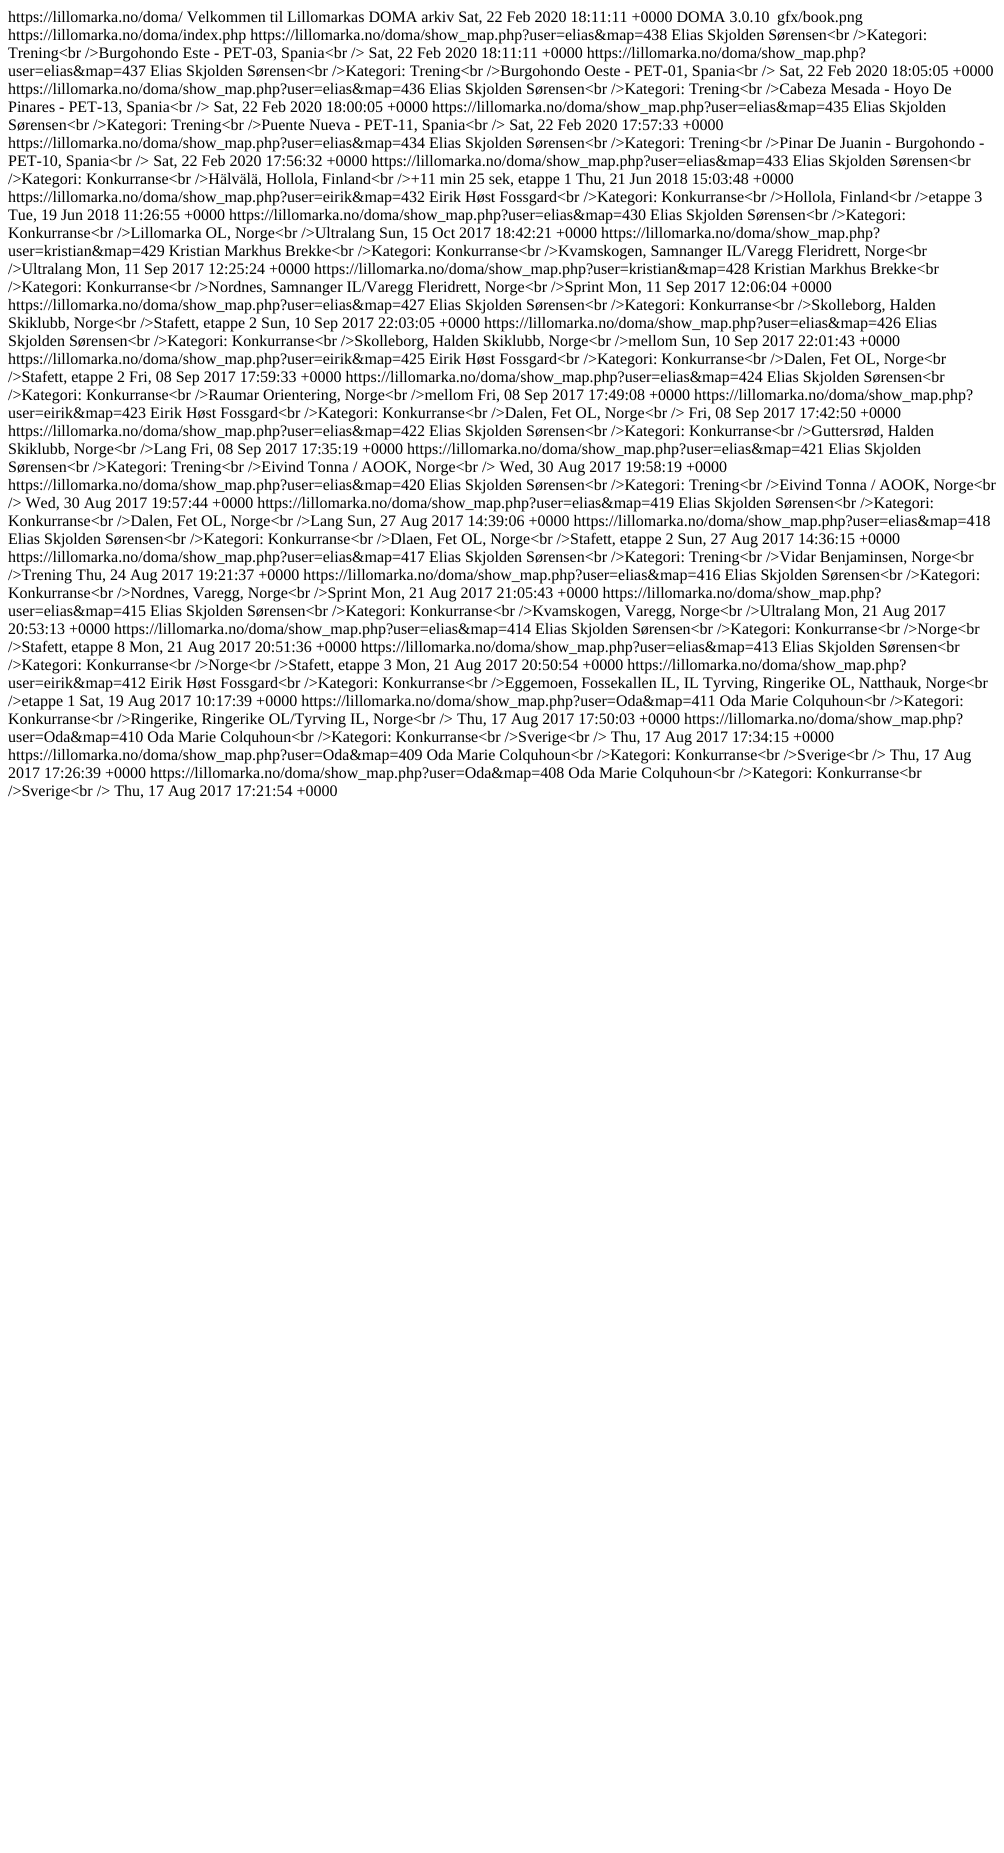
import math
import cairo

surface = cairo.ImageSurface(cairo.FORMAT_RGB24, 1004, 1853)
cr = cairo.Context(surface)
options = cairo.FontOptions()
options.set_hint_metrics(cairo.HINT_METRICS_OFF)
options.set_hint_style(cairo.HINT_STYLE_NONE)
cr.set_font_options(options)
cr.set_miter_limit(4)


def rgb(code):
    cr.set_source_rgb(*(v / 255 for v in bytes.fromhex(code[-6:])))


rgb("#ffffff")
cr.paint()
cr.select_font_face("Liberation Serif")
cr.set_font_size(16)
rgb("#000000")
for x, y, s in [
    (8, 22, "https://lillomarka.no/doma/ Velkommen til Lillomarkas DOMA arkiv Sat, 22 Feb 2020 18:11:11 +0000 DOMA 3.0.10"),
    (777, 22, "gfx/book.png"),
    (8, 40, "https://lillomarka.no/doma/index.php https://lillomarka.no/doma/show_map.php?user=elias&map=438 Elias Skjolden Sørensen<br />Kategori:"),
    (8, 58, "Trening<br />Burgohondo Este - PET-03, Spania<br /> Sat, 22 Feb 2020 18:11:11 +0000 https://lillomarka.no/doma/show_map.php?"),
    (8, 76, "user=elias&map=437 Elias Skjolden Sørensen<br />Kategori: Trening<br />Burgohondo Oeste - PET-01, Spania<br /> Sat, 22 Feb 2020 18:05:05 +0000"),
    (8, 94, "https://lillomarka.no/doma/show_map.php?user=elias&map=436 Elias Skjolden Sørensen<br />Kategori: Trening<br />Cabeza Mesada - Hoyo De"),
    (8, 112, "Pinares - PET-13, Spania<br /> Sat, 22 Feb 2020 18:00:05 +0000 https://lillomarka.no/doma/show_map.php?user=elias&map=435 Elias Skjolden"),
    (8, 130, "Sørensen<br />Kategori: Trening<br />Puente Nueva - PET-11, Spania<br /> Sat, 22 Feb 2020 17:57:33 +0000"),
    (8, 148, "https://lillomarka.no/doma/show_map.php?user=elias&map=434 Elias Skjolden Sørensen<br />Kategori: Trening<br />Pinar De Juanin - Burgohondo -"),
    (8, 166, "PET-10, Spania<br /> Sat, 22 Feb 2020 17:56:32 +0000 https://lillomarka.no/doma/show_map.php?user=elias&map=433 Elias Skjolden Sørensen<br"),
    (8, 184, "/>Kategori: Konkurranse<br />Hälvälä, Hollola, Finland<br />+11 min 25 sek, etappe 1 Thu, 21 Jun 2018 15:03:48 +0000"),
    (8, 202, "https://lillomarka.no/doma/show_map.php?user=eirik&map=432 Eirik Høst Fossgard<br />Kategori: Konkurranse<br />Hollola, Finland<br />etappe 3"),
    (8, 220, "Tue, 19 Jun 2018 11:26:55 +0000 https://lillomarka.no/doma/show_map.php?user=elias&map=430 Elias Skjolden Sørensen<br />Kategori:"),
    (8, 238, "Konkurranse<br />Lillomarka OL, Norge<br />Ultralang Sun, 15 Oct 2017 18:42:21 +0000 https://lillomarka.no/doma/show_map.php?"),
    (8, 256, "user=kristian&map=429 Kristian Markhus Brekke<br />Kategori: Konkurranse<br />Kvamskogen, Samnanger IL/Varegg Fleridrett, Norge<br"),
    (8, 274, "/>Ultralang Mon, 11 Sep 2017 12:25:24 +0000 https://lillomarka.no/doma/show_map.php?user=kristian&map=428 Kristian Markhus Brekke<br"),
    (8, 292, "/>Kategori: Konkurranse<br />Nordnes, Samnanger IL/Varegg Fleridrett, Norge<br />Sprint Mon, 11 Sep 2017 12:06:04 +0000"),
    (8, 310, "https://lillomarka.no/doma/show_map.php?user=elias&map=427 Elias Skjolden Sørensen<br />Kategori: Konkurranse<br />Skolleborg, Halden"),
    (8, 328, "Skiklubb, Norge<br />Stafett, etappe 2 Sun, 10 Sep 2017 22:03:05 +0000 https://lillomarka.no/doma/show_map.php?user=elias&map=426 Elias"),
    (8, 346, "Skjolden Sørensen<br />Kategori: Konkurranse<br />Skolleborg, Halden Skiklubb, Norge<br />mellom Sun, 10 Sep 2017 22:01:43 +0000"),
    (8, 364, "https://lillomarka.no/doma/show_map.php?user=eirik&map=425 Eirik Høst Fossgard<br />Kategori: Konkurranse<br />Dalen, Fet OL, Norge<br"),
    (8, 382, "/>Stafett, etappe 2 Fri, 08 Sep 2017 17:59:33 +0000 https://lillomarka.no/doma/show_map.php?user=elias&map=424 Elias Skjolden Sørensen<br"),
    (8, 400, "/>Kategori: Konkurranse<br />Raumar Orientering, Norge<br />mellom Fri, 08 Sep 2017 17:49:08 +0000 https://lillomarka.no/doma/show_map.php?"),
    (8, 418, "user=eirik&map=423 Eirik Høst Fossgard<br />Kategori: Konkurranse<br />Dalen, Fet OL, Norge<br /> Fri, 08 Sep 2017 17:42:50 +0000"),
    (8, 436, "https://lillomarka.no/doma/show_map.php?user=elias&map=422 Elias Skjolden Sørensen<br />Kategori: Konkurranse<br />Guttersrød, Halden"),
    (8, 454, "Skiklubb, Norge<br />Lang Fri, 08 Sep 2017 17:35:19 +0000 https://lillomarka.no/doma/show_map.php?user=elias&map=421 Elias Skjolden"),
    (8, 472, "Sørensen<br />Kategori: Trening<br />Eivind Tonna / AOOK, Norge<br /> Wed, 30 Aug 2017 19:58:19 +0000"),
    (8, 490, "https://lillomarka.no/doma/show_map.php?user=elias&map=420 Elias Skjolden Sørensen<br />Kategori: Trening<br />Eivind Tonna / AOOK, Norge<br"),
    (8, 508, "/> Wed, 30 Aug 2017 19:57:44 +0000 https://lillomarka.no/doma/show_map.php?user=elias&map=419 Elias Skjolden Sørensen<br />Kategori:"),
    (8, 526, "Konkurranse<br />Dalen, Fet OL, Norge<br />Lang Sun, 27 Aug 2017 14:39:06 +0000 https://lillomarka.no/doma/show_map.php?user=elias&map=418"),
    (8, 544, "Elias Skjolden Sørensen<br />Kategori: Konkurranse<br />Dlaen, Fet OL, Norge<br />Stafett, etappe 2 Sun, 27 Aug 2017 14:36:15 +0000"),
    (8, 562, "https://lillomarka.no/doma/show_map.php?user=elias&map=417 Elias Skjolden Sørensen<br />Kategori: Trening<br />Vidar Benjaminsen, Norge<br"),
    (8, 580, "/>Trening Thu, 24 Aug 2017 19:21:37 +0000 https://lillomarka.no/doma/show_map.php?user=elias&map=416 Elias Skjolden Sørensen<br />Kategori:"),
    (8, 598, "Konkurranse<br />Nordnes, Varegg, Norge<br />Sprint Mon, 21 Aug 2017 21:05:43 +0000 https://lillomarka.no/doma/show_map.php?"),
    (8, 616, "user=elias&map=415 Elias Skjolden Sørensen<br />Kategori: Konkurranse<br />Kvamskogen, Varegg, Norge<br />Ultralang Mon, 21 Aug 2017"),
    (8, 634, "20:53:13 +0000 https://lillomarka.no/doma/show_map.php?user=elias&map=414 Elias Skjolden Sørensen<br />Kategori: Konkurranse<br />Norge<br"),
    (8, 652, "/>Stafett, etappe 8 Mon, 21 Aug 2017 20:51:36 +0000 https://lillomarka.no/doma/show_map.php?user=elias&map=413 Elias Skjolden Sørensen<br"),
    (8, 670, "/>Kategori: Konkurranse<br />Norge<br />Stafett, etappe 3 Mon, 21 Aug 2017 20:50:54 +0000 https://lillomarka.no/doma/show_map.php?"),
    (8, 688, "user=eirik&map=412 Eirik Høst Fossgard<br />Kategori: Konkurranse<br />Eggemoen, Fossekallen IL, IL Tyrving, Ringerike OL, Natthauk, Norge<br"),
    (8, 706, "/>etappe 1 Sat, 19 Aug 2017 10:17:39 +0000 https://lillomarka.no/doma/show_map.php?user=Oda&map=411 Oda Marie Colquhoun<br />Kategori:"),
    (8, 724, "Konkurranse<br />Ringerike, Ringerike OL/Tyrving IL, Norge<br /> Thu, 17 Aug 2017 17:50:03 +0000 https://lillomarka.no/doma/show_map.php?"),
    (8, 742, "user=Oda&map=410 Oda Marie Colquhoun<br />Kategori: Konkurranse<br />Sverige<br /> Thu, 17 Aug 2017 17:34:15 +0000"),
    (8, 760, "https://lillomarka.no/doma/show_map.php?user=Oda&map=409 Oda Marie Colquhoun<br />Kategori: Konkurranse<br />Sverige<br /> Thu, 17 Aug"),
    (8, 778, "2017 17:26:39 +0000 https://lillomarka.no/doma/show_map.php?user=Oda&map=408 Oda Marie Colquhoun<br />Kategori: Konkurranse<br"),
    (8, 796, "/>Sverige<br /> Thu, 17 Aug 2017 17:21:54 +0000"),
]:
    cr.move_to(x, y)
    cr.show_text(s)
surface.write_to_png("page.png")
